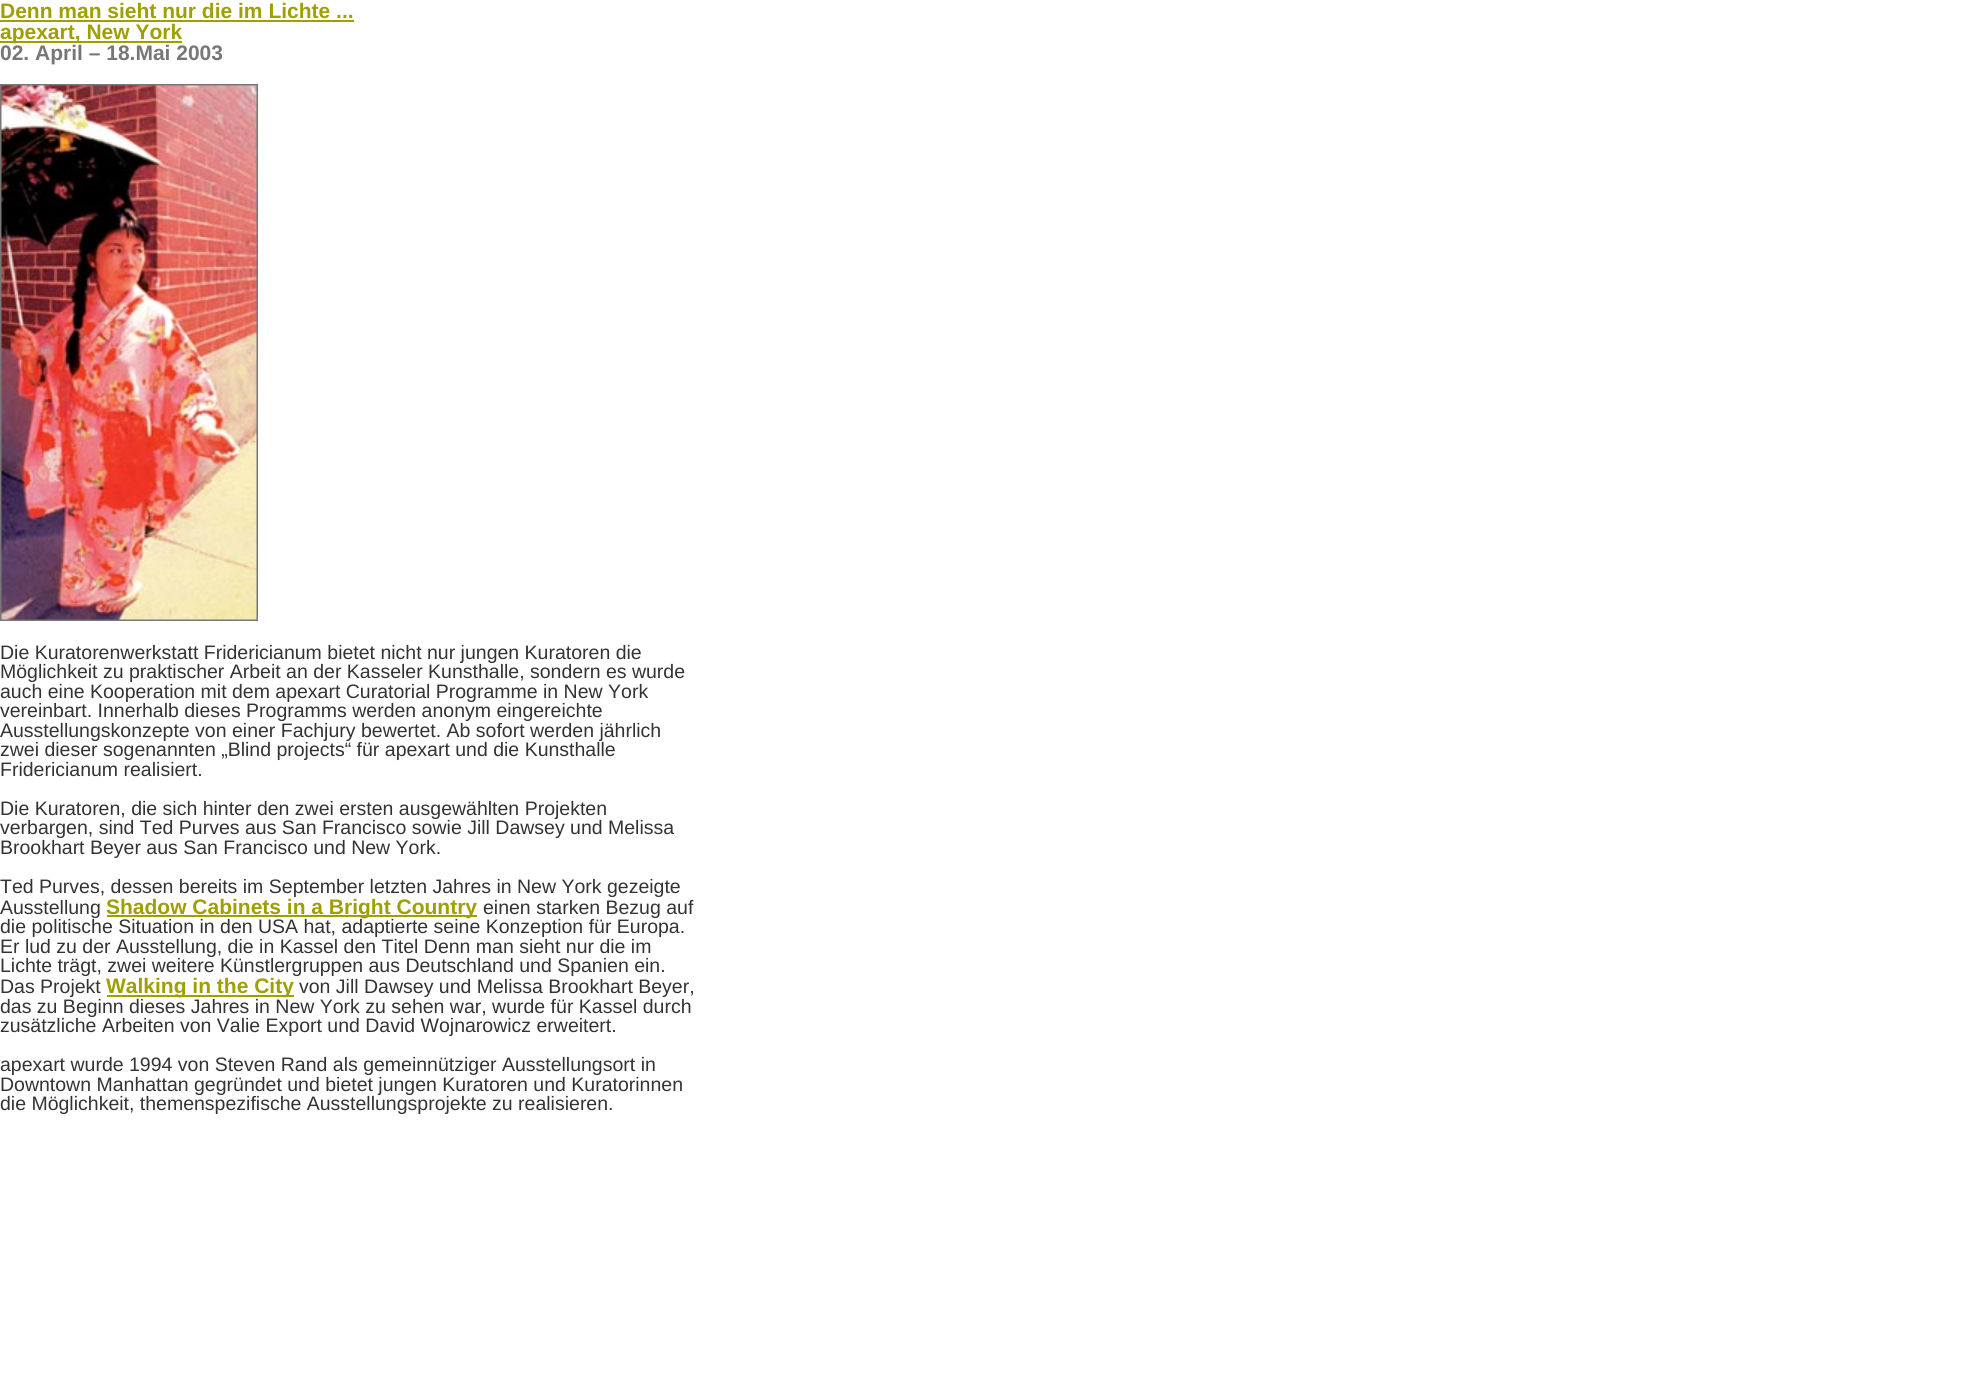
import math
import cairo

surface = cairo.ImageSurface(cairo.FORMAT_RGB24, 1975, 1376)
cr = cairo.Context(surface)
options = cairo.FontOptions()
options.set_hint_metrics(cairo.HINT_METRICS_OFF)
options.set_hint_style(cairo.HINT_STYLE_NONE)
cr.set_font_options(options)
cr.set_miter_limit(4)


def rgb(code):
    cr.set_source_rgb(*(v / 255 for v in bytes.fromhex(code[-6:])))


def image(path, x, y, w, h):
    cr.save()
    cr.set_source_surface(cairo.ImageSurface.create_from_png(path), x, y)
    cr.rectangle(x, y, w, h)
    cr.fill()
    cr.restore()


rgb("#ffffff")
cr.paint()
rgb("#9f9f00")
cr.rectangle(0, 20, 354, 2)
cr.fill()
cr.rectangle(0, 41, 182, 2)
cr.fill()
cr.rectangle(1, 85, 256, 535)
rgb("#777777")
cr.stroke()
image("img/1.png", 1, 85, 256, 535)
rgb("#9f9f00")
cr.rectangle(107, 915, 370, 2)
cr.fill()
cr.rectangle(107, 995, 187, 2)
cr.fill()
cr.select_font_face("Liberation Sans", cairo.FONT_SLANT_NORMAL, cairo.FONT_WEIGHT_BOLD)
cr.set_font_size(21)
cr.move_to(0, 18)
cr.show_text("Denn man sieht nur die im Lichte ...")
cr.move_to(0, 39)
cr.show_text("apexart, New York")
rgb("#777777")
cr.move_to(0, 60)
cr.show_text("02. April – 18.Mai 2003")
cr.select_font_face("Liberation Sans")
cr.set_font_size(19.5)
rgb("#333333")
for x, y, s in [
    (0, 659, "Die Kuratorenwerkstatt Fridericianum bietet nicht nur jungen Kuratoren die"),
    (0, 678, "Möglichkeit zu praktischer Arbeit an der Kasseler Kunsthalle, sondern es wurde"),
    (0, 698, "auch eine Kooperation mit dem apexart Curatorial Programme in New York"),
    (0, 717, "vereinbart. Innerhalb dieses Programms werden anonym eingereichte"),
    (0, 737, "Ausstellungskonzepte von einer Fachjury bewertet. Ab sofort werden jährlich"),
    (0, 756, "zwei dieser sogenannten „Blind projects“ für apexart und die Kunsthalle"),
    (0, 776, "Fridericianum realisiert."),
    (0, 815, "Die Kuratoren, die sich hinter den zwei ersten ausgewählten Projekten"),
    (0, 834, "verbargen, sind Ted Purves aus San Francisco sowie Jill Dawsey und Melissa"),
    (0, 854, "Brookhart Beyer aus San Francisco und New York."),
    (0, 893, "Ted Purves, dessen bereits im September letzten Jahres in New York gezeigte"),
    (0, 914, "Ausstellung"),
]:
    cr.move_to(x, y)
    cr.show_text(s)
cr.select_font_face("Liberation Sans", cairo.FONT_SLANT_NORMAL, cairo.FONT_WEIGHT_BOLD)
cr.set_font_size(21)
rgb("#9f9f00")
cr.move_to(106, 914)
cr.show_text("Shadow Cabinets in a Bright Country")
cr.select_font_face("Liberation Sans")
cr.set_font_size(19.5)
rgb("#333333")
for x, y, s in [
    (483, 914, "einen starken Bezug auf"),
    (0, 933, "die politische Situation in den USA hat, adaptierte seine Konzeption für Europa."),
    (0, 953, "Er lud zu der Ausstellung, die in Kassel den Titel Denn man sieht nur die im"),
    (0, 972, "Lichte trägt, zwei weitere Künstlergruppen aus Deutschland und Spanien ein."),
    (0, 993, "Das Projekt"),
]:
    cr.move_to(x, y)
    cr.show_text(s)
cr.select_font_face("Liberation Sans", cairo.FONT_SLANT_NORMAL, cairo.FONT_WEIGHT_BOLD)
cr.set_font_size(21)
rgb("#9f9f00")
cr.move_to(106, 993)
cr.show_text("Walking in the City")
cr.select_font_face("Liberation Sans")
cr.set_font_size(19.5)
rgb("#333333")
for x, y, s in [
    (299, 993, "von Jill Dawsey und Melissa Brookhart Beyer,"),
    (0, 1013, "das zu Beginn dieses Jahres in New York zu sehen war, wurde für Kassel durch"),
    (0, 1032, "zusätzliche Arbeiten von Valie Export und David Wojnarowicz erweitert."),
    (0, 1071, "apexart wurde 1994 von Steven Rand als gemeinnütziger Ausstellungsort in"),
    (0, 1091, "Downtown Manhattan gegründet und bietet jungen Kuratoren und Kuratorinnen"),
    (0, 1110, "die Möglichkeit, themenspezifische Ausstellungsprojekte zu realisieren."),
]:
    cr.move_to(x, y)
    cr.show_text(s)
surface.write_to_png("page.png")
